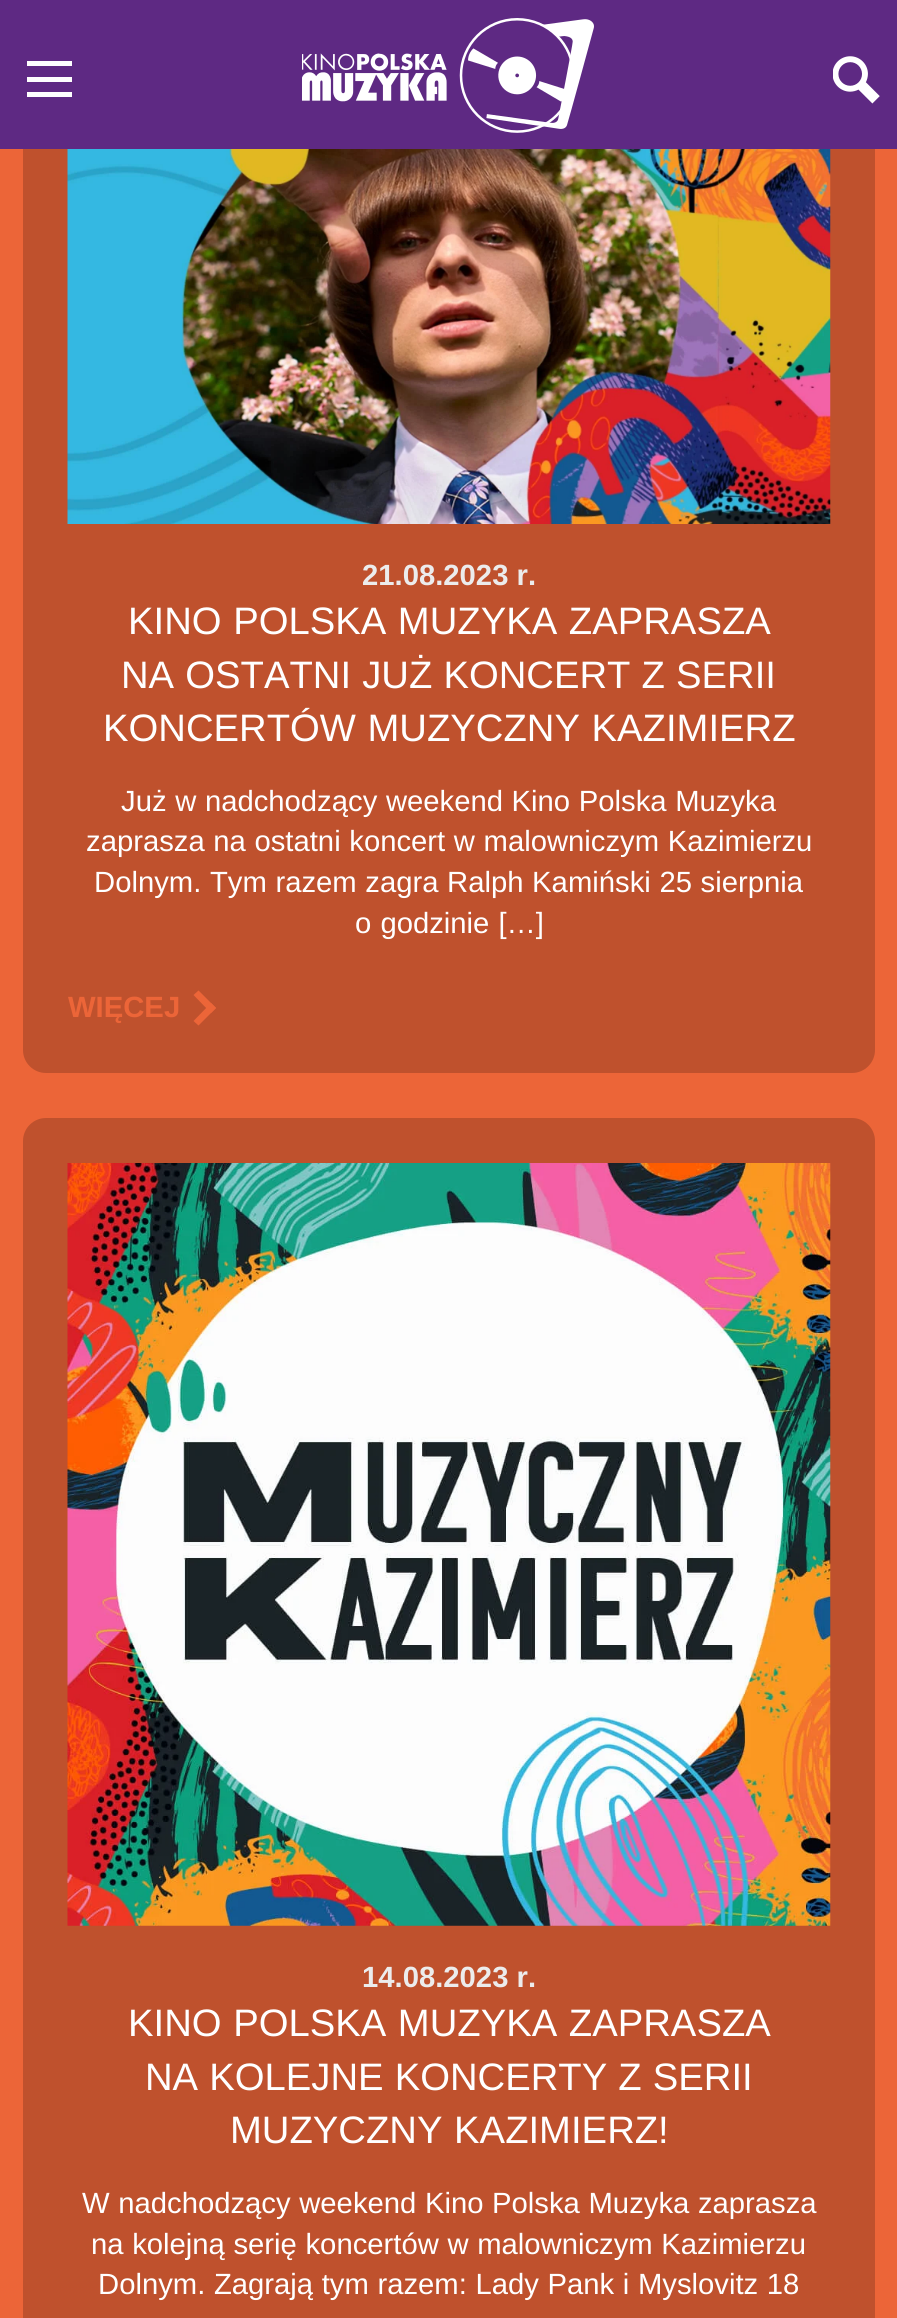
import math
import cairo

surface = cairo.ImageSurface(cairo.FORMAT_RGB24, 897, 2318)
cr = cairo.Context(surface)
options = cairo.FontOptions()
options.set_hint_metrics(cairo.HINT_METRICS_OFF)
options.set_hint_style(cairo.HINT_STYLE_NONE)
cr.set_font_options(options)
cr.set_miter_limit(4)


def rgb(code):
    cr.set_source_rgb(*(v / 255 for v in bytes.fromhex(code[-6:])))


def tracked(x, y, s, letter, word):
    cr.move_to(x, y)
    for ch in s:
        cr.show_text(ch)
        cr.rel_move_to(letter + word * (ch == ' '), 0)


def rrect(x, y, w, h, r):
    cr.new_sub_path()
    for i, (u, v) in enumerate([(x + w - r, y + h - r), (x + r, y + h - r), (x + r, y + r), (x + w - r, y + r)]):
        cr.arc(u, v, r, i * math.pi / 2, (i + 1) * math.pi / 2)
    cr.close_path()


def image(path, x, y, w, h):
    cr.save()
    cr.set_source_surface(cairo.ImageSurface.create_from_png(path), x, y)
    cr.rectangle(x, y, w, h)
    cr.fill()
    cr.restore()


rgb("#ec6538")
cr.paint()
rgb("#bf512d")
rrect(23, 50, 852, 1023, 23)
cr.fill()
for x, y, w, h, color in [
    (0, 0, 897, 149, "#5e2983"),
    (27, 92, 45, 5, "#fefefe"),
    (27, 77, 45, 5, "#fefefe"),
    (27, 61, 45, 5, "#fefefe"),
]:
    rgb(color)
    cr.rectangle(x, y, w, h)
    cr.fill()
image("img/1.png", 302, 18, 292, 115)
image("img/2.png", 833, 56, 47, 48)
image("img/3.png", 67, 149, 764, 375)
rgb("#ec6538")
cr.new_path()
cr.move_to(198.5, 1025.5)
cr.line_to(193.5, 1021)
cr.line_to(211, 1003)
cr.line_to(216, 1008)
cr.close_path()
cr.fill()
cr.new_path()
cr.move_to(193.5, 995)
cr.line_to(198.5, 990.5)
cr.line_to(216, 1008)
cr.line_to(211, 1013)
cr.close_path()
cr.fill()
rgb("#bf512d")
rrect(23, 1118, 852, 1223, 23)
cr.fill()
image("img/4.png", 67, 1163, 764, 763)
cr.select_font_face("Liberation Sans", cairo.FONT_SLANT_NORMAL, cairo.FONT_WEIGHT_BOLD)
cr.set_font_size(29.25)
rgb("#ececec")
cr.move_to(362, 585)
cr.show_text("21.08.2023 r.")
cr.select_font_face("Liberation Sans")
cr.set_font_size(38.25)
rgb("#ffffff")
tracked(128, 634, "KINO POLSKA MUZYKA ZAPRASZA", 0, 1)
tracked(121, 688, "NA OSTATNI JUŻ KONCERT Z SERII", 0, 0.5)
tracked(103, 741, "KONCERTÓW MUZYCZNY KAZIMIERZ", 0, 1)
cr.set_font_size(29.25)
for x, y, s in [
    (121, 811, "Już w nadchodzący weekend Kino Polska Muzyka"),
    (86, 851, "zaprasza na ostatni koncert w malowniczym Kazimierzu"),
    (94, 892, "Dolnym. Tym razem zagra Ralph Kamiński 25 sierpnia"),
]:
    tracked(x, y, s, 0, 0.5)
tracked(355, 933, "o godzinie […]", 0, 1)
cr.select_font_face("Liberation Sans", cairo.FONT_SLANT_NORMAL, cairo.FONT_WEIGHT_BOLD)
rgb("#ec6538")
cr.move_to(68, 1017)
cr.show_text("WIĘCEJ")
rgb("#ececec")
cr.move_to(362, 1987)
cr.show_text("14.08.2023 r.")
cr.select_font_face("Liberation Sans")
cr.set_font_size(38.25)
rgb("#ffffff")
tracked(128, 2036, "KINO POLSKA MUZYKA ZAPRASZA", 0, 1)
tracked(145, 2090, "NA KOLEJNE KONCERTY Z SERII", 0, 0.5)
tracked(230, 2143, "MUZYCZNY KAZIMIERZ!", 0, 1)
cr.set_font_size(29.25)
for x, y, s in [
    (82, 2213, "W nadchodzący weekend Kino Polska Muzyka zaprasza"),
    (91, 2254, "na kolejną serię koncertów w malowniczym Kazimierzu"),
    (98, 2294, "Dolnym. Zagrają tym razem: Lady Pank i Myslovitz 18"),
]:
    tracked(x, y, s, 0, 0.5)
surface.write_to_png("page.png")
